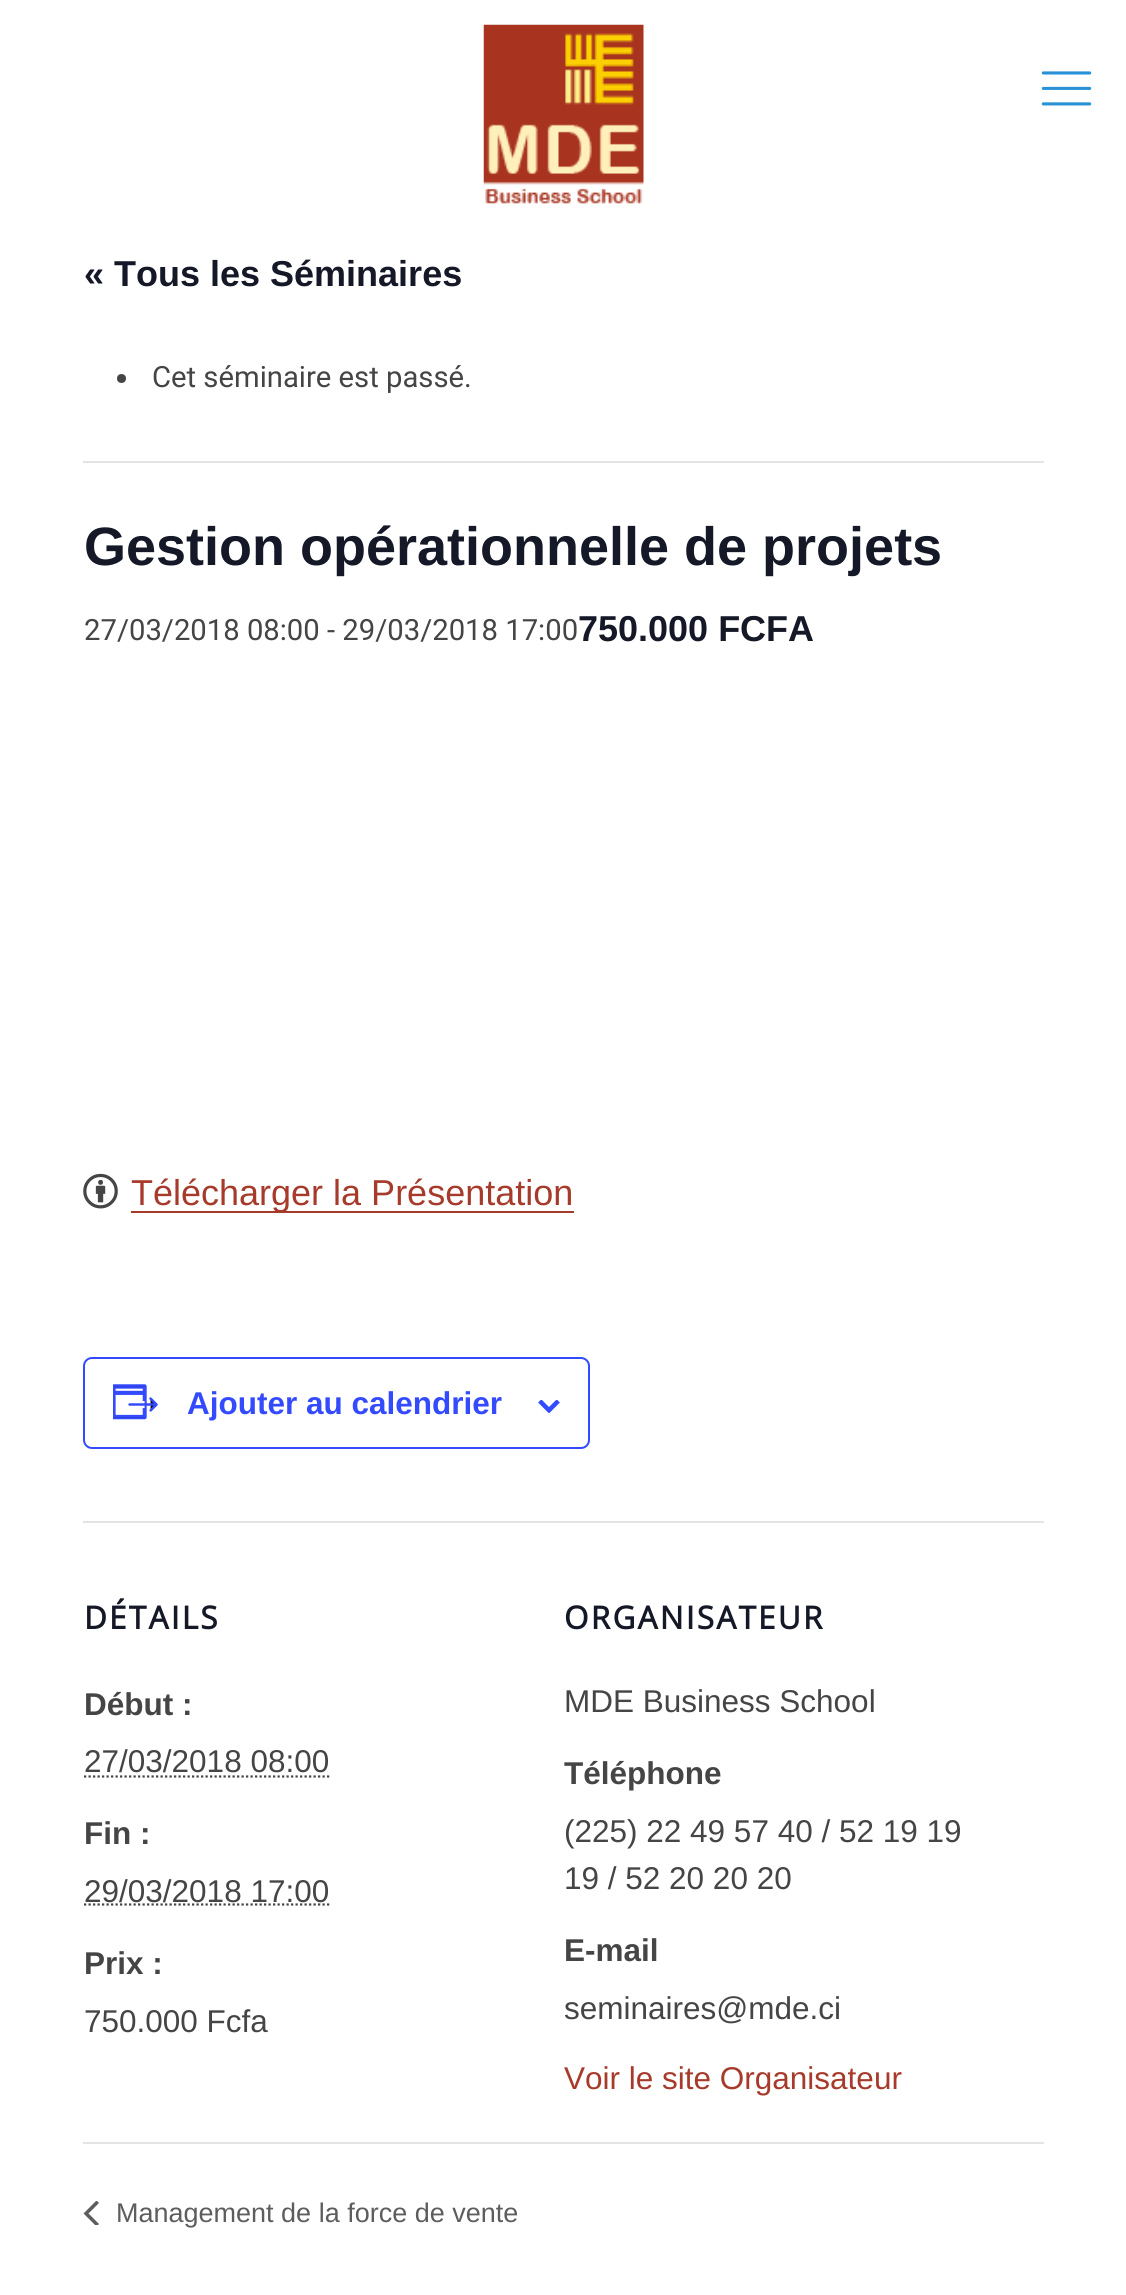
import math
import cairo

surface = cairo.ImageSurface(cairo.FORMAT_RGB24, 1126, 2295)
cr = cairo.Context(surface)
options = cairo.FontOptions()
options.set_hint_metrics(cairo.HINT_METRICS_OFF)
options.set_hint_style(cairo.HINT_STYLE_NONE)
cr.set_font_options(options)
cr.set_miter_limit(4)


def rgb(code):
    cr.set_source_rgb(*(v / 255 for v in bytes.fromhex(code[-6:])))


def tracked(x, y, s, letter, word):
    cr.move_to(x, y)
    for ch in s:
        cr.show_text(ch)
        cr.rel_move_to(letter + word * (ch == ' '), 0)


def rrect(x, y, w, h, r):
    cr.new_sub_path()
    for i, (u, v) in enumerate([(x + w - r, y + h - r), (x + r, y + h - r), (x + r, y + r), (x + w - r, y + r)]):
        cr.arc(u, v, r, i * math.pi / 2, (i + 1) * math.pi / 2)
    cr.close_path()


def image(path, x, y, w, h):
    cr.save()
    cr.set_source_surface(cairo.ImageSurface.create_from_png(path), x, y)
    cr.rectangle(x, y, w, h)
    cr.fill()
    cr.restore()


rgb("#ffffff")
cr.paint()
image("img/1.png", 483, 24, 161, 180)
image("img/2.png", 1041, 71, 51, 35)
rgb("#e4e4e4")
cr.rectangle(83, 461, 961, 2)
cr.fill()
rgb("#454545")
cr.arc(121.5, 378.5, 4.5, 0, 2 * math.pi)
cr.fill()
image("img/3.png", 83, 1173, 35, 36)
rgb("#a73b2b")
cr.rectangle(131, 1211, 443, 2)
cr.fill()
rrect(84, 1358, 505, 90, 8)
rgb("#334aff")
cr.stroke()
image("img/4.png", 113, 1384, 45, 36)
image("img/5.png", 538, 1400, 22, 13)
rgb("#e4e4e4")
cr.rectangle(83, 1521, 961, 2)
cr.fill()
cr.new_path()
cr.move_to(84, 1776.5)
cr.line_to(250.5, 1776.5)
rgb("#454545")
cr.set_line_width(2.2)
cr.set_dash([2.25, 2.25])
cr.stroke()
cr.new_path()
cr.move_to(250.5, 1776.5)
cr.line_to(329.5, 1776.5)
cr.stroke()
cr.new_path()
cr.move_to(84, 1904.5)
cr.line_to(250.5, 1904.5)
cr.stroke()
cr.new_path()
cr.move_to(250.5, 1904.5)
cr.line_to(329.5, 1904.5)
cr.stroke()
rgb("#e4e4e4")
cr.rectangle(83, 2142, 961, 2)
cr.fill()
cr.save()
cr.rectangle(83, 2201, 16, 24)
cr.clip()
rgb("#5d5d5d")
cr.new_path()
cr.move_to(99, 2224)
cr.line_to(96.5, 2226.5)
cr.line_to(83.5, 2213.5)
cr.line_to(96.5, 2200.5)
cr.line_to(99, 2203)
cr.line_to(88.5, 2213.5)
cr.close_path()
cr.fill()
cr.restore()
cr.select_font_face("Liberation Sans", cairo.FONT_SLANT_NORMAL, cairo.FONT_WEIGHT_BOLD)
cr.set_font_size(36)
rgb("#141827")
cr.move_to(84, 286)
cr.show_text("« Tous les Séminaires")
cr.select_font_face("Roboto")
cr.set_font_size(29.25)
rgb("#454545")
cr.move_to(152, 387)
cr.show_text("Cet séminaire est passé.")
cr.select_font_face("Liberation Sans", cairo.FONT_SLANT_NORMAL, cairo.FONT_WEIGHT_BOLD)
cr.set_font_size(54)
rgb("#141827")
cr.move_to(84, 565)
cr.show_text("Gestion opérationnelle de projets")
cr.select_font_face("Roboto")
cr.set_font_size(29.25)
rgb("#454545")
cr.move_to(84, 640)
cr.show_text("27/03/2018 08:00 - 29/03/2018 17:00")
cr.select_font_face("Liberation Sans", cairo.FONT_SLANT_NORMAL, cairo.FONT_WEIGHT_BOLD)
cr.set_font_size(36)
rgb("#141827")
cr.move_to(578, 641)
cr.show_text("750.000 FCFA")
cr.select_font_face("Liberation Sans")
rgb("#a73b2b")
cr.move_to(131, 1205)
cr.show_text("Télécharger la Présentation")
cr.select_font_face("Liberation Sans", cairo.FONT_SLANT_NORMAL, cairo.FONT_WEIGHT_BOLD)
cr.set_font_size(31.5)
rgb("#334aff")
cr.move_to(187, 1414)
cr.show_text("Ajouter au calendrier")
cr.select_font_face("Open Sans", cairo.FONT_SLANT_NORMAL, cairo.FONT_WEIGHT_BOLD)
rgb("#141827")
tracked(84, 1629, "DÉTAILS", 2.25, 0)
cr.select_font_face("Liberation Sans", cairo.FONT_SLANT_NORMAL, cairo.FONT_WEIGHT_BOLD)
rgb("#454545")
cr.move_to(84, 1715)
cr.show_text("Début :")
cr.select_font_face("Liberation Sans")
cr.move_to(84, 1772)
cr.show_text("27/03/2018 08:00")
cr.select_font_face("Liberation Sans", cairo.FONT_SLANT_NORMAL, cairo.FONT_WEIGHT_BOLD)
cr.move_to(84, 1844)
cr.show_text("Fin :")
cr.select_font_face("Liberation Sans")
cr.move_to(84, 1902)
cr.show_text("29/03/2018 17:00")
cr.select_font_face("Liberation Sans", cairo.FONT_SLANT_NORMAL, cairo.FONT_WEIGHT_BOLD)
cr.move_to(84, 1974)
cr.show_text("Prix :")
cr.select_font_face("Liberation Sans")
cr.move_to(84, 2032)
cr.show_text("750.000 Fcfa")
cr.select_font_face("Open Sans", cairo.FONT_SLANT_NORMAL, cairo.FONT_WEIGHT_BOLD)
rgb("#141827")
tracked(564, 1629, "ORGANISATEUR", 2.25, 0)
cr.select_font_face("Liberation Sans")
rgb("#454545")
cr.move_to(564, 1712)
cr.show_text("MDE Business School")
cr.select_font_face("Liberation Sans", cairo.FONT_SLANT_NORMAL, cairo.FONT_WEIGHT_BOLD)
cr.move_to(564, 1784)
cr.show_text("Téléphone")
cr.select_font_face("Liberation Sans")
cr.move_to(564, 1842)
cr.show_text("(225) 22 49 57 40 / 52 19 19")
cr.move_to(564, 1889)
cr.show_text("19 / 52 20 20 20")
cr.select_font_face("Liberation Sans", cairo.FONT_SLANT_NORMAL, cairo.FONT_WEIGHT_BOLD)
cr.move_to(564, 1961)
cr.show_text("E-mail")
cr.select_font_face("Liberation Sans")
cr.move_to(564, 2019)
cr.show_text("seminaires@mde.ci")
rgb("#a73b2b")
cr.move_to(564, 2089)
cr.show_text("Voir le site Organisateur")
cr.set_font_size(27)
rgb("#5d5d5d")
cr.move_to(116, 2222)
cr.show_text("Management de la force de vente")
surface.write_to_png("page.png")
